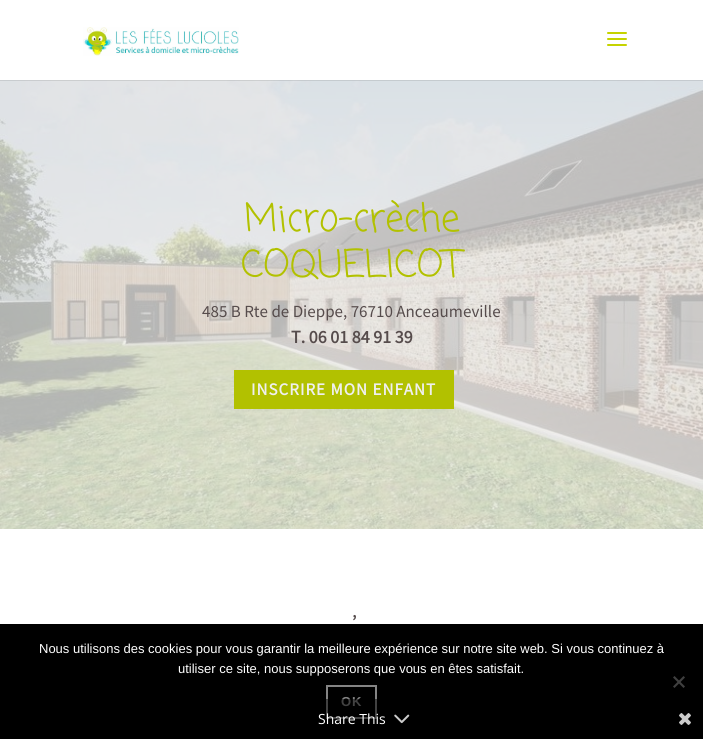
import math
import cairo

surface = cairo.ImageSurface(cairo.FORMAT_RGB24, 703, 739)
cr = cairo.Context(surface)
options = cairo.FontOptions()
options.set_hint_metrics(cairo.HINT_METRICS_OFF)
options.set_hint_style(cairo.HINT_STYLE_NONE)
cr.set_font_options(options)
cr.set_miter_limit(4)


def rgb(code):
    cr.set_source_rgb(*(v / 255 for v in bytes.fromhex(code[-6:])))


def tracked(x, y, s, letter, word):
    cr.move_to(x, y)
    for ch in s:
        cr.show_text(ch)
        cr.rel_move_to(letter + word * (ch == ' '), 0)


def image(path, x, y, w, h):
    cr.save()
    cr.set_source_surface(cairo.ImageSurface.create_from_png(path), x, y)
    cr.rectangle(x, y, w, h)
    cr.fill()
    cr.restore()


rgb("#ffffff")
cr.paint()
image("img/3.png", 0, 80, 703, 449)
cr.set_source_rgba(0, 0, 0, 0.1)
cr.rectangle(0, 80, 703, 1)
cr.fill()
image("img/1.png", 83, 27, 156, 29)
image("img/2.png", 607, 32, 20, 14)
rgb("#b2c100")
cr.rectangle(234, 370, 220, 39)
cr.fill()
rgb("#000000")
cr.rectangle(0, 624, 703, 115)
cr.fill()
rgb("#404040")
cr.new_path()
cr.move_to(683.5, 676)
cr.line_to(685, 677.5)
cr.line_to(674.5, 688)
cr.line_to(673, 686.5)
cr.close_path()
cr.fill()
cr.new_path()
cr.move_to(673, 677.5)
cr.line_to(674.5, 676)
cr.line_to(685, 686.5)
cr.line_to(683.5, 688)
cr.close_path()
cr.fill()
cr.rectangle(327, 686, 49, 32)
rgb("#848484")
cr.stroke()
image("img/4.png", 394, 714, 16, 10)
image("img/5.png", 679, 713, 12, 12)
cr.select_font_face("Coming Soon")
cr.set_font_size(38)
rgb("#b2c100")
cr.move_to(244, 231)
cr.show_text("Micro-crèche")
cr.move_to(241, 277)
cr.show_text("COQUELICOT")
cr.select_font_face("Source Sans Pro")
cr.set_font_size(17)
rgb("#564c4c")
cr.move_to(202, 317)
cr.show_text("485 B Rte de Dieppe, 76710 Anceaumeville")
cr.select_font_face("Source Sans Pro", cairo.FONT_SLANT_NORMAL, cairo.FONT_WEIGHT_BOLD)
cr.set_font_size(18)
cr.move_to(291, 343)
cr.show_text("T. 06 01 84 91 39")
cr.set_font_size(17)
rgb("#efefef")
tracked(251, 395, "INSCRIRE MON ENFANT", 1, 0)
cr.set_font_size(18)
rgb("#564c4c")
cr.move_to(352, 628)
cr.show_text("’")
cr.select_font_face("Liberation Sans")
cr.set_font_size(13)
rgb("#ffffff")
cr.move_to(39, 653)
cr.show_text("Nous utilisons des cookies pour vous garantir la meilleure expérience sur notre site web. Si vous continuez à")
cr.move_to(178, 673)
cr.show_text("utiliser ce site, nous supposerons que vous en êtes satisfait.")
cr.select_font_face("Liberation Sans", cairo.FONT_SLANT_NORMAL, cairo.FONT_WEIGHT_BOLD)
rgb("#848484")
tracked(341, 706, "OK", 1, 0)
cr.set_source_rgba(0, 0, 0, 0.5)
cr.rectangle(326, 699, 51, 20)
cr.fill()
cr.select_font_face("Open Sans")
cr.set_font_size(14)
rgb("#ffffff")
cr.move_to(318, 724)
cr.show_text("Share This")
surface.write_to_png("page.png")
